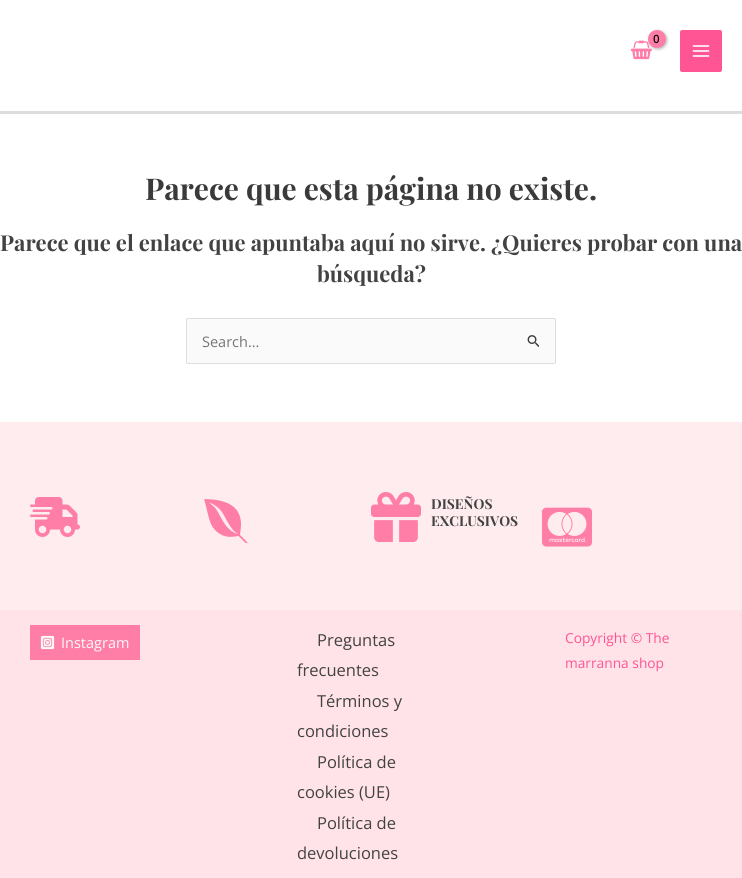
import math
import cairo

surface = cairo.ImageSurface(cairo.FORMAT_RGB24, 742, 878)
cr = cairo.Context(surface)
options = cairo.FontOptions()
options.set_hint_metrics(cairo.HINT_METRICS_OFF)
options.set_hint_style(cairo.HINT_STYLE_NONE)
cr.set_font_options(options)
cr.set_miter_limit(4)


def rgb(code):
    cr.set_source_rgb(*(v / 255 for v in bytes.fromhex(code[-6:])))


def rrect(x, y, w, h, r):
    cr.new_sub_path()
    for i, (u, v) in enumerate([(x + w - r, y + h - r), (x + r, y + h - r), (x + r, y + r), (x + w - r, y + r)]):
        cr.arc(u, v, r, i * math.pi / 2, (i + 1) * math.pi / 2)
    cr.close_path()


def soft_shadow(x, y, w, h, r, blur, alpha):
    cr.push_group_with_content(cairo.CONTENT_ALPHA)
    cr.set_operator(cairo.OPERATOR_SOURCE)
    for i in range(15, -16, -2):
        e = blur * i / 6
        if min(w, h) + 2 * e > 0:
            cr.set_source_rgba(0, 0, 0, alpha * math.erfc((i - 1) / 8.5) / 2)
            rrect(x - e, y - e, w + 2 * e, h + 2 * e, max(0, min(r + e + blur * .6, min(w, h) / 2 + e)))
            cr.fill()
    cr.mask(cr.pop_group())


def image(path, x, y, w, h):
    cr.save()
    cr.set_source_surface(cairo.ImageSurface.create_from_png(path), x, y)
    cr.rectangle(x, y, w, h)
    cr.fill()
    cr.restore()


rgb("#ffffff")
cr.paint()
rgb("#dddddd")
cr.rectangle(0, 111, 742, 3)
cr.fill()
image("img/1.png", 630, 40, 22, 20)
rgb("#000000")
soft_shadow(649, 31, 18, 18, 9, 1.5, 0.3)
rgb("#ff7ea8")
cr.arc(657, 39, 9, 0, 2 * math.pi)
cr.fill()
rgb("#ff5594")
rrect(680, 30, 42, 42, 2)
cr.fill()
image("img/2.png", 692, 45, 18, 12)
rgb("#fafafa")
rrect(186.5, 318.5, 369, 45, 1.5)
cr.fill_preserve()
rgb("#dddddd")
cr.set_line_width(1)
cr.stroke()
image("img/3.png", 527, 335, 12, 12)
rgb("#ffecef")
cr.rectangle(0, 422, 742, 188)
cr.fill()
image("img/4.png", 30, 497, 50, 40)
image("img/5.png", 204, 499, 44, 44)
image("img/6.png", 371, 492, 50, 50)
image("img/7.png", 542, 507, 50, 40)
rgb("#ffe3e8")
cr.rectangle(0, 610, 742, 268)
cr.fill()
rgb("#ff7ea8")
cr.rectangle(30, 625, 110, 35)
cr.fill()
image("img/8.png", 40, 635, 15, 15)
cr.select_font_face("Open Sans", cairo.FONT_SLANT_NORMAL, cairo.FONT_WEIGHT_BOLD)
cr.set_font_size(11)
rgb("#000000")
cr.move_to(653, 43)
cr.show_text("0")
cr.select_font_face("Playfair Display", cairo.FONT_SLANT_NORMAL, cairo.FONT_WEIGHT_BOLD)
cr.set_font_size(30)
rgb("#3a3a3a")
cr.move_to(145, 200)
cr.show_text("Parece que esta página no existe.")
cr.set_font_size(21.9)
rgb("#424242")
cr.move_to(0, 251)
cr.show_text("Parece que el enlace que apuntaba aquí no sirve. ¿Quieres probar con una")
cr.move_to(317, 282)
cr.show_text("búsqueda?")
cr.select_font_face("Open Sans")
cr.set_font_size(14.5)
rgb("#757575")
cr.move_to(202, 347)
cr.show_text("Search...")
cr.select_font_face("Playfair Display", cairo.FONT_SLANT_NORMAL, cairo.FONT_WEIGHT_BOLD)
cr.set_font_size(13.75)
rgb("#424242")
cr.move_to(431, 509)
cr.show_text("DISEÑOS")
cr.move_to(431, 526)
cr.show_text("EXCLUSIVOS")
cr.select_font_face("Open Sans")
cr.set_font_size(14.5)
rgb("#f9f9f9")
cr.move_to(61, 648)
cr.show_text("Instagram")
cr.set_font_size(16.5)
rgb("#424242")
for x, y, s in [
    (317, 646, "Preguntas"),
    (297, 676, "frecuentes"),
    (317, 707, "Términos y"),
    (297, 737, "condiciones"),
    (317, 768, "Política de"),
    (297, 798, "cookies (UE)"),
    (317, 829, "Política de"),
    (297, 859, "devoluciones"),
]:
    cr.move_to(x, y)
    cr.show_text(s)
cr.set_font_size(13.75)
rgb("#ff5594")
cr.move_to(565, 643)
cr.show_text("Copyright © The")
cr.move_to(565, 668)
cr.show_text("marranna shop")
surface.write_to_png("page.png")
